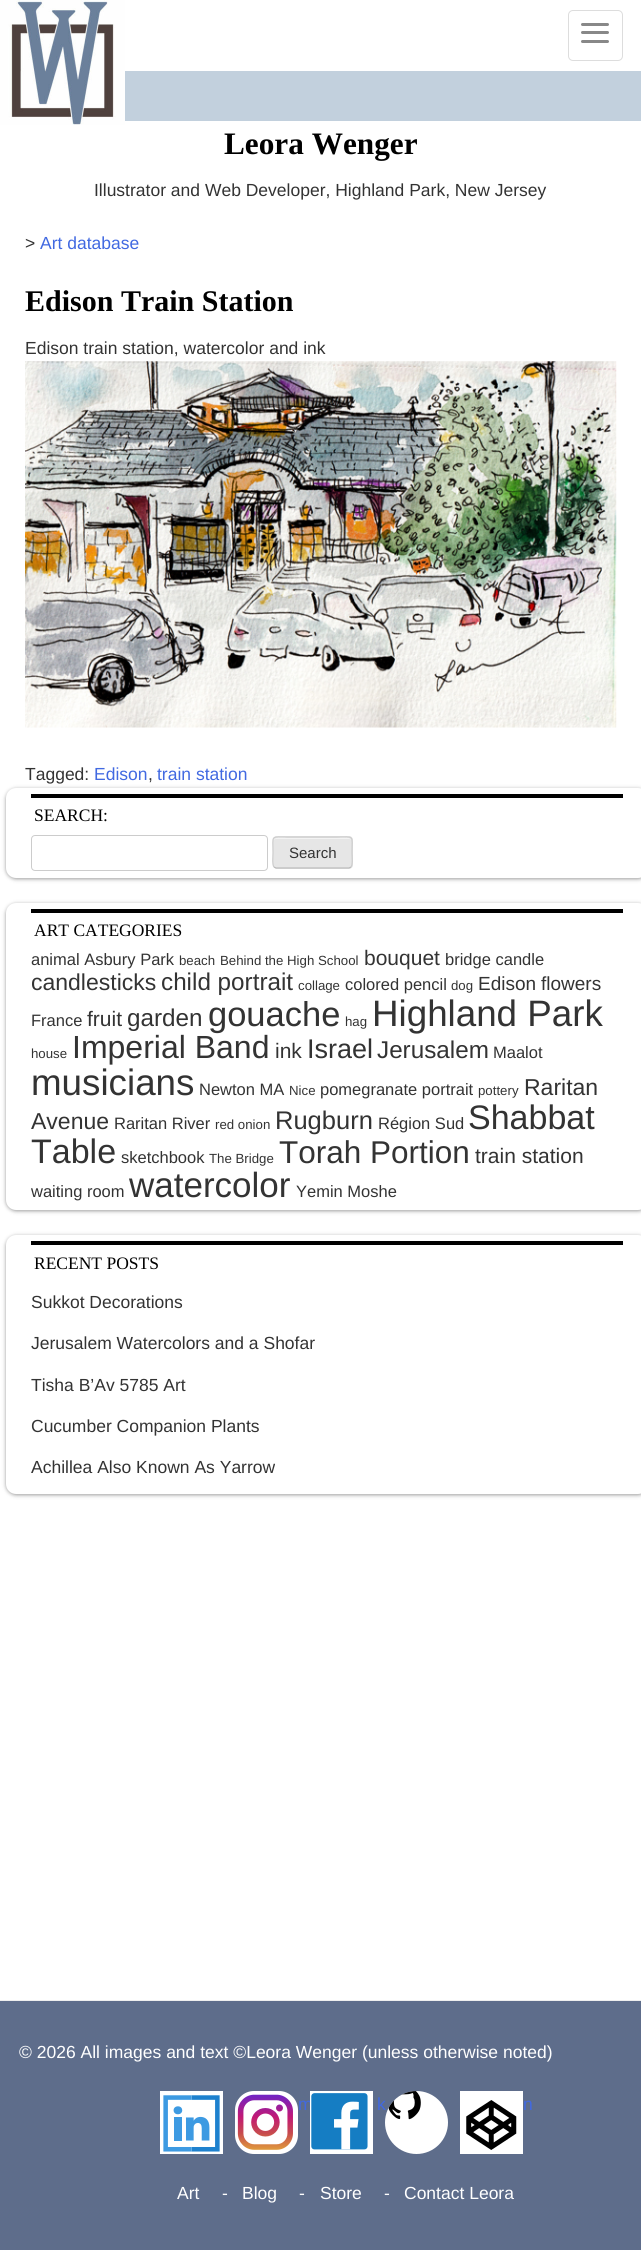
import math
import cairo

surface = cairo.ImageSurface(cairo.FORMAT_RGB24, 641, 2250)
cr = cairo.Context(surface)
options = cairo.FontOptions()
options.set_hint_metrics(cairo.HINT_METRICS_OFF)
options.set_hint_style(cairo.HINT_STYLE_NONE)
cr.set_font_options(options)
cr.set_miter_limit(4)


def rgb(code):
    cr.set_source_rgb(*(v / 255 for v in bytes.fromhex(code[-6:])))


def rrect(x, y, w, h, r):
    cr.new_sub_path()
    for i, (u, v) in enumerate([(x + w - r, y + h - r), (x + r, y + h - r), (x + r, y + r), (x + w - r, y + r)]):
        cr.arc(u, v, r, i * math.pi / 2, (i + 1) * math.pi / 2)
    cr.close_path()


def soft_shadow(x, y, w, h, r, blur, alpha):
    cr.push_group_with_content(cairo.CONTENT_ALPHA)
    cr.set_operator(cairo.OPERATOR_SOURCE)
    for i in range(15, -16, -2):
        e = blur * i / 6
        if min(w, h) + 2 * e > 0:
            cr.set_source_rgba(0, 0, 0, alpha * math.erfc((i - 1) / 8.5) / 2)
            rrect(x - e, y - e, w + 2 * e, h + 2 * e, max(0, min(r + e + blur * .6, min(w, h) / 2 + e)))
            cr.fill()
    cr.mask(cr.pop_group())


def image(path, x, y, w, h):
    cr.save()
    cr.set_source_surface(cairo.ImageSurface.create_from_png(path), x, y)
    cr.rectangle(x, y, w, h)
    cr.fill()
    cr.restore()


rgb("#ffffff")
cr.paint()
image("img/1.png", 0, 0, 125, 125)
rrect(568.5, 10.5, 54, 50, 4.5)
rgb("#dddddd")
cr.set_line_width(1)
cr.stroke()
rgb("#888888")
rrect(581, 23, 28, 3, 1.5)
cr.fill()
rrect(581, 31, 28, 3, 1.5)
cr.fill()
rrect(581, 40, 28, 3, 1.5)
cr.fill()
rgb("#c2d0dd")
cr.rectangle(125, 71, 516, 50)
cr.fill()
image("img/2.png", 25, 361, 592, 367)
rgb("#000000")
soft_shadow(6, 789, 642, 90, 10, 2, 0.4)
rgb("#ffffff")
rrect(6, 788, 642, 90, 10)
cr.fill()
rgb("#000000")
cr.rectangle(31, 794, 592, 4)
cr.fill()
rrect(31.5, 835.5, 236, 35, 3.5)
rgb("#cccccc")
cr.stroke()
rgb("#e6e6e6")
rrect(273, 836, 80, 33, 4)
cr.fill()
rgb("#f3f3f3")
cr.new_path()
cr.move_to(276, 839)
cr.line_to(349, 839)
cr.curve_to(350, 839, 351, 840, 351, 841)
cr.curve_to(351, 835, 337, 838, 336, 838)
cr.line_to(288, 838)
cr.curve_to(288, 838, 274, 835, 274, 841)
cr.curve_to(274, 840, 275, 839, 276, 839)
cr.close_path()
cr.fill()
cr.new_path()
cr.move_to(351, 867)
cr.line_to(349, 868)
cr.line_to(276, 868)
cr.line_to(274, 867)
rgb("#bbbbbb")
cr.set_line_width(1.2)
cr.stroke()
cr.new_path()
cr.move_to(274, 867)
cr.curve_to(272, 865, 273, 855.5, 273, 852.5)
cr.curve_to(273, 834.5, 270, 837, 288.5, 837)
cr.line_to(336.5, 837)
cr.curve_to(355, 837, 352, 834.5, 352, 852.5)
cr.curve_to(352, 855.5, 353, 865, 351, 867)
rgb("#cccccc")
cr.stroke()
rgb("#000000")
soft_shadow(6, 904, 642, 307, 10, 2, 0.4)
rgb("#ffffff")
rrect(6, 903, 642, 307, 10)
cr.fill()
rgb("#000000")
cr.rectangle(31, 909, 592, 4)
cr.fill()
rgb("#000000")
soft_shadow(6, 1236, 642, 259, 10, 2, 0.4)
rgb("#ffffff")
rrect(6, 1235, 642, 259, 10)
cr.fill()
for x, y, w, h, color in [
    (31, 1241, 592, 4, "#000000"),
    (0, 2001, 641, 249, "#5e6d8b"),
    (0, 2000, 641, 1, "#eeeeee"),
    (160, 2091, 63, 63, "#ffffff"),
]:
    rgb(color)
    cr.rectangle(x, y, w, h)
    cr.fill()
image("img/3.png", 163, 2095, 57, 57)
rrect(235, 2091, 63, 63, 19)
cr.fill()
image("img/4.png", 237, 2094, 56, 56)
cr.rectangle(460, 2091, 63, 63)
cr.fill()
image("img/7.png", 466, 2100, 51, 50)
cr.select_font_face("Liberation Serif", cairo.FONT_SLANT_NORMAL, cairo.FONT_WEIGHT_BOLD)
cr.set_font_size(31.25)
rgb("#000000")
cr.move_to(224, 154)
cr.show_text("Leora Wenger")
cr.select_font_face("Liberation Sans")
cr.set_font_size(17.5)
rgb("#333333")
cr.move_to(94, 196)
cr.show_text("Illustrator and Web Developer, Highland Park, New Jersey")
cr.move_to(25, 249)
cr.show_text(">")
rgb("#4169e1")
cr.move_to(40, 249)
cr.show_text("Art database")
cr.select_font_face("Liberation Serif", cairo.FONT_SLANT_NORMAL, cairo.FONT_WEIGHT_BOLD)
cr.set_font_size(30)
rgb("#000000")
cr.move_to(25, 311)
cr.show_text("Edison Train Station")
cr.select_font_face("Liberation Sans")
cr.set_font_size(17.5)
rgb("#333333")
cr.move_to(25, 354)
cr.show_text("Edison train station, watercolor and ink")
cr.move_to(25, 780)
cr.show_text("Tagged:")
rgb("#4169e1")
cr.move_to(94, 780)
cr.show_text("Edison")
rgb("#333333")
cr.move_to(148, 780)
cr.show_text(",")
rgb("#4169e1")
cr.move_to(157, 780)
cr.show_text("train station")
cr.select_font_face("Liberation Serif")
rgb("#000000")
cr.move_to(34, 821)
cr.show_text("SEARCH:")
cr.select_font_face("Liberation Sans")
cr.set_font_size(15)
rgb("#333333")
cr.move_to(289, 858)
cr.show_text("Search")
cr.select_font_face("Liberation Serif")
cr.set_font_size(17.5)
rgb("#000000")
cr.move_to(34, 936)
cr.show_text("ART CATEGORIES")
cr.select_font_face("Liberation Sans")
cr.set_font_size(16.5)
rgb("#333333")
cr.move_to(31, 965)
cr.show_text("animal Asbury Park")
cr.set_font_size(13.25)
cr.move_to(179, 965)
cr.show_text("beach")
cr.move_to(220, 965)
cr.show_text("Behind the High School")
cr.set_font_size(21)
cr.move_to(364, 965)
cr.show_text("bouquet")
cr.set_font_size(16.5)
cr.move_to(445, 965)
cr.show_text("bridge candle")
cr.set_font_size(23)
cr.move_to(31, 990)
cr.show_text("candlesticks")
cr.set_font_size(24.25)
cr.move_to(161, 990)
cr.show_text("child portrait")
cr.set_font_size(13.25)
cr.move_to(298, 990)
cr.show_text("collage")
cr.set_font_size(16.5)
cr.move_to(345, 990)
cr.show_text("colored pencil")
cr.set_font_size(13.25)
cr.move_to(451, 990)
cr.show_text("dog")
cr.set_font_size(19)
cr.move_to(478, 990)
cr.show_text("Edison")
cr.move_to(541, 990)
cr.show_text("flowers")
cr.set_font_size(16.5)
cr.move_to(31, 1026)
cr.show_text("France")
cr.set_font_size(21)
cr.move_to(87, 1026)
cr.show_text("fruit")
cr.set_font_size(24.25)
cr.move_to(127, 1026)
cr.show_text("garden")
cr.set_font_size(34.5)
cr.move_to(208, 1026)
cr.show_text("gouache")
cr.set_font_size(13.25)
cr.move_to(345, 1026)
cr.show_text("hag")
cr.set_font_size(36.75)
cr.move_to(372, 1026)
cr.show_text("Highland Park")
cr.set_font_size(13.25)
cr.move_to(31, 1058)
cr.show_text("house")
cr.set_font_size(32)
cr.move_to(72, 1058)
cr.show_text("Imperial Band")
cr.set_font_size(21)
cr.move_to(275, 1058)
cr.show_text("ink")
cr.set_font_size(27)
cr.move_to(307, 1058)
cr.show_text("Israel")
cr.set_font_size(24.25)
cr.move_to(377, 1058)
cr.show_text("Jerusalem")
cr.set_font_size(16.5)
cr.move_to(493, 1058)
cr.show_text("Maalot")
cr.set_font_size(36.75)
cr.move_to(31, 1095)
cr.show_text("musicians")
cr.set_font_size(16.5)
cr.move_to(199, 1095)
cr.show_text("Newton MA")
cr.set_font_size(13.25)
cr.move_to(289, 1095)
cr.show_text("Nice")
cr.set_font_size(16.5)
cr.move_to(320, 1095)
cr.show_text("pomegranate portrait")
cr.set_font_size(13.25)
cr.move_to(478, 1095)
cr.show_text("pottery")
cr.set_font_size(23)
cr.move_to(524, 1095)
cr.show_text("Raritan")
cr.move_to(31, 1129)
cr.show_text("Avenue")
cr.set_font_size(16.5)
cr.move_to(114, 1129)
cr.show_text("Raritan River")
cr.set_font_size(13.25)
cr.move_to(215, 1129)
cr.show_text("red onion")
cr.set_font_size(25.5)
cr.move_to(275, 1129)
cr.show_text("Rugburn")
cr.set_font_size(16.5)
cr.move_to(378, 1129)
cr.show_text("Région Sud")
cr.set_font_size(34)
cr.move_to(468, 1129)
cr.show_text("Shabbat")
cr.move_to(31, 1163)
cr.show_text("Table")
cr.set_font_size(16.5)
cr.move_to(121, 1163)
cr.show_text("sketchbook")
cr.set_font_size(13.25)
cr.move_to(209, 1163)
cr.show_text("The Bridge")
cr.set_font_size(31.5)
cr.move_to(279, 1163)
cr.show_text("Torah Portion")
cr.set_font_size(21)
cr.move_to(475, 1163)
cr.show_text("train station")
cr.set_font_size(16.5)
cr.move_to(31, 1197)
cr.show_text("waiting room")
cr.set_font_size(35)
cr.move_to(129, 1197)
cr.show_text("watercolor")
cr.set_font_size(16.5)
cr.move_to(296, 1197)
cr.show_text("Yemin Moshe")
cr.select_font_face("Liberation Serif")
cr.set_font_size(17.5)
rgb("#000000")
cr.move_to(34, 1269)
cr.show_text("RECENT POSTS")
cr.select_font_face("Liberation Sans")
rgb("#333333")
for x, y, s in [
    (31, 1308, "Sukkot Decorations"),
    (31, 1349, "Jerusalem Watercolors and a Shofar"),
    (31, 1391, "Tisha B’Av 5785 Art"),
    (31, 1432, "Cucumber Companion Plants"),
    (31, 1473, "Achillea Also Known As Yarrow"),
]:
    cr.move_to(x, y)
    cr.show_text(s)
rgb("#ffffff")
cr.move_to(19, 2058)
cr.show_text("© 2026 All images and text ©Leora Wenger (unless otherwise noted)")
rgb("#4169e1")
cr.move_to(298, 2110)
cr.show_text("m")
rgb("#ffffff")
cr.rectangle(310, 2091, 63, 63)
cr.fill()
image("img/5.png", 311, 2093, 57, 57)
rgb("#4169e1")
cr.move_to(377, 2110)
cr.show_text("k")
rgb("#ffffff")
cr.new_path()
cr.arc(416.5, 2122.5, 31.5, 0, 2 * math.pi)
cr.fill()
image("img/6.png", 388, 2091, 33, 29)
rgb("#4169e1")
cr.move_to(523, 2110)
cr.show_text("n")
rgb("#ffffff")
for x, y, s in [
    (177, 2199, "Art"),
    (222, 2199, "-"),
    (242, 2199, "Blog"),
    (299, 2199, "-"),
    (320, 2199, "Store"),
    (384, 2199, "-"),
    (404, 2199, "Contact Leora"),
]:
    cr.move_to(x, y)
    cr.show_text(s)
surface.write_to_png("page.png")
